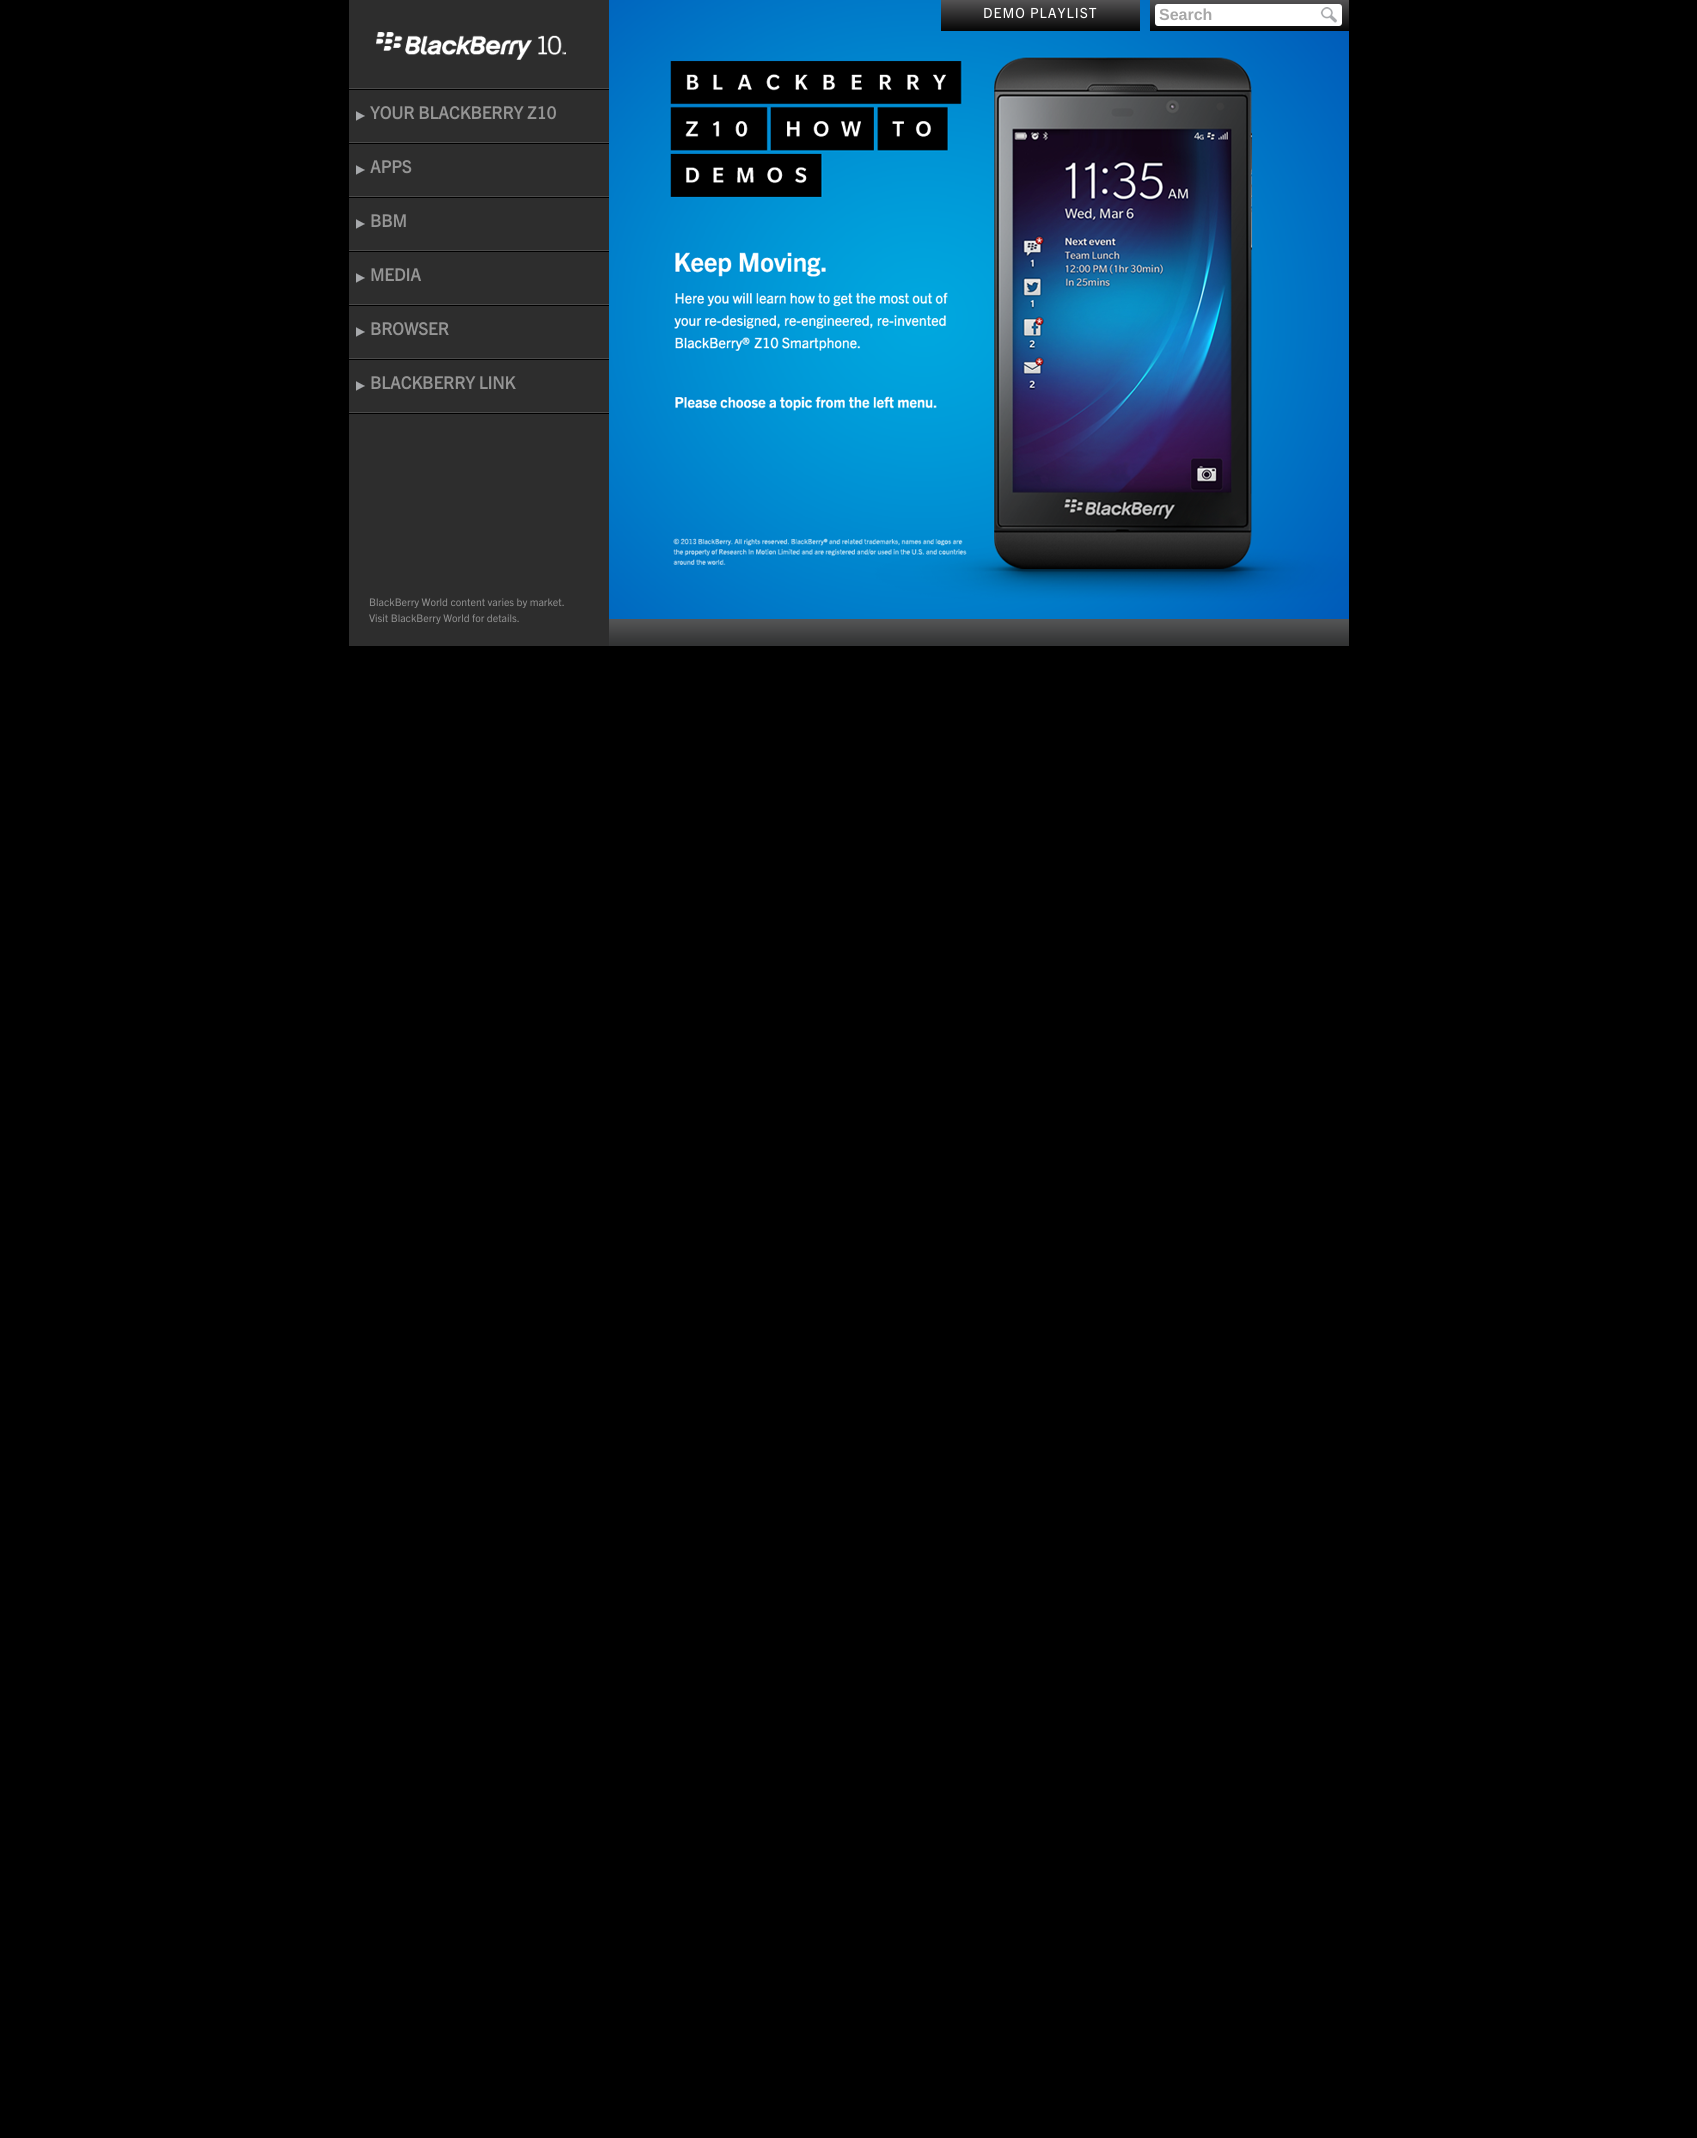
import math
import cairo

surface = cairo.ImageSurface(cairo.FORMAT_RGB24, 1697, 2138)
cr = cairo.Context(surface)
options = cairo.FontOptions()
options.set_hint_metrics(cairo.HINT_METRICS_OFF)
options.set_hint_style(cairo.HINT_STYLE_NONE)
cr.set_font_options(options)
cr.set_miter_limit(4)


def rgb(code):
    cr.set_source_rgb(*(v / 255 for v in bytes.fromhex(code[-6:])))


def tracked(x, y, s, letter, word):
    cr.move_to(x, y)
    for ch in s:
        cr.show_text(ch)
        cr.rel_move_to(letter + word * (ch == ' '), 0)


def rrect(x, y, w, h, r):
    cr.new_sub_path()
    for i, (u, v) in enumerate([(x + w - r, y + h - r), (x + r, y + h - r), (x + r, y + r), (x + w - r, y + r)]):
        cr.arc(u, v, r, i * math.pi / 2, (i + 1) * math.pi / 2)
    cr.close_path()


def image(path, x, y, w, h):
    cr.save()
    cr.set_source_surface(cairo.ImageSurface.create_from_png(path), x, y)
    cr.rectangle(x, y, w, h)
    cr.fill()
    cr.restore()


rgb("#000000")
cr.paint()
image("img/1.png", 609, 619, 740, 27)
image("img/2.png", 609, 0, 740, 619)
image("img/3.png", 941, 0, 199, 31)
image("img/3.png", 1150, 0, 199, 31)
rgb("#ffffff")
rrect(1155, 4, 187, 22, 3)
cr.fill()
image("img/4.png", 1320, 7, 17, 16)
rgb("#2d2d2d")
cr.rectangle(349, 0, 260, 646)
cr.fill()
image("img/5.png", 376, 32, 190, 28)
rgb("#4a4a4a")
cr.rectangle(349, 88, 260, 1)
cr.fill()
rgb("#000000")
cr.rectangle(349, 89, 260, 1)
cr.fill()
image("img/6.png", 356, 111, 9, 10)
rgb("#4a4a4a")
cr.rectangle(349, 142, 260, 1)
cr.fill()
rgb("#000000")
cr.rectangle(349, 143, 260, 1)
cr.fill()
image("img/6.png", 356, 165, 9, 10)
rgb("#4a4a4a")
cr.rectangle(349, 196, 260, 1)
cr.fill()
rgb("#000000")
cr.rectangle(349, 197, 260, 1)
cr.fill()
image("img/6.png", 356, 219, 9, 10)
rgb("#4a4a4a")
cr.rectangle(349, 250, 260, 1)
cr.fill()
rgb("#000000")
cr.rectangle(349, 251, 260, 1)
cr.fill()
image("img/6.png", 356, 273, 9, 10)
rgb("#4a4a4a")
cr.rectangle(349, 304, 260, 1)
cr.fill()
rgb("#000000")
cr.rectangle(349, 305, 260, 1)
cr.fill()
image("img/6.png", 356, 327, 9, 10)
rgb("#4a4a4a")
cr.rectangle(349, 358, 260, 1)
cr.fill()
rgb("#000000")
cr.rectangle(349, 359, 260, 1)
cr.fill()
image("img/6.png", 356, 381, 9, 10)
rgb("#4a4a4a")
cr.rectangle(349, 412, 260, 1)
cr.fill()
rgb("#000000")
cr.rectangle(349, 413, 260, 1)
cr.fill()
cr.select_font_face("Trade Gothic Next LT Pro")
cr.set_font_size(14)
rgb("#ffffff")
tracked(983, 18, "DEMO PLAYLIST", 1, 0)
cr.select_font_face("Liberation Sans", cairo.FONT_SLANT_NORMAL, cairo.FONT_WEIGHT_BOLD)
cr.set_font_size(16)
rgb("#a7a7a7")
cr.move_to(1159, 20)
cr.show_text("Search")
cr.select_font_face("Trade Gothic Next LT Pro", cairo.FONT_SLANT_NORMAL, cairo.FONT_WEIGHT_BOLD)
cr.set_font_size(17)
rgb("#959595")
for x, y, s in [
    (370, 119, "YOUR BLACKBERRY Z10"),
    (370, 173, "APPS"),
    (370, 227, "BBM"),
    (370, 281, "MEDIA"),
    (370, 335, "BROWSER"),
    (370, 389, "BLACKBERRY LINK"),
]:
    cr.move_to(x, y)
    cr.show_text(s)
cr.select_font_face("Trade Gothic Next LT Pro")
cr.set_font_size(10.5)
rgb("#8e8e8e")
cr.move_to(369, 606)
cr.show_text("BlackBerry World content varies by market.")
cr.move_to(369, 622)
cr.show_text("Visit BlackBerry World for details.")
surface.write_to_png("page.png")
